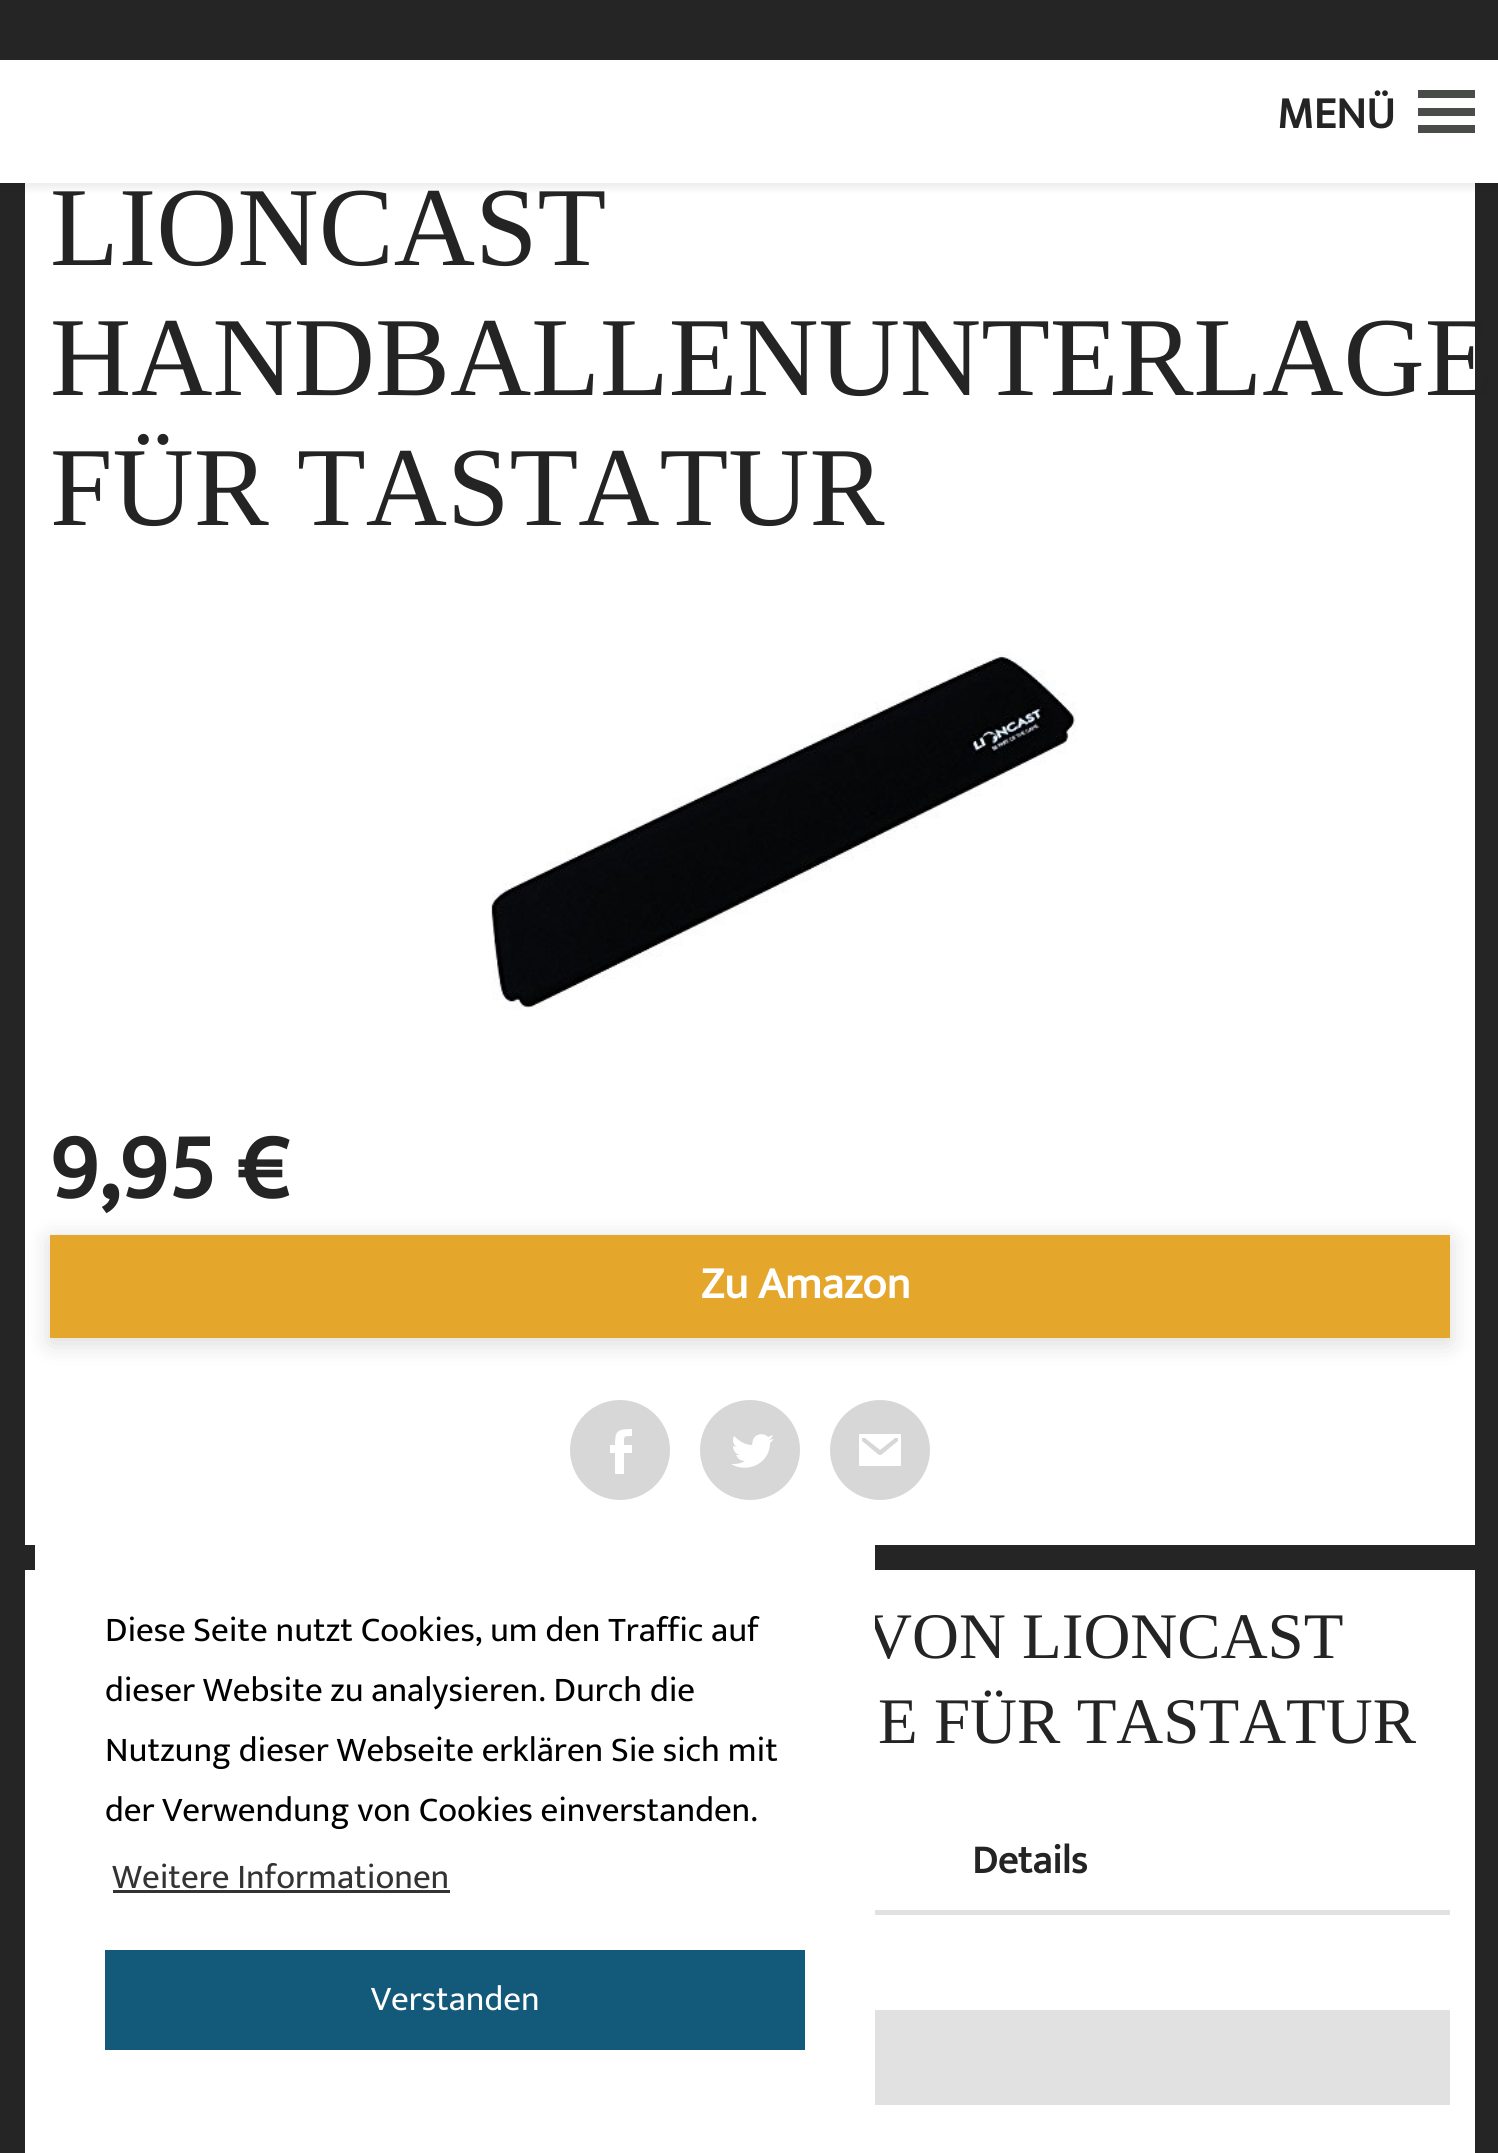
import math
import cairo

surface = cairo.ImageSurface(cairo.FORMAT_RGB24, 1498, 2153)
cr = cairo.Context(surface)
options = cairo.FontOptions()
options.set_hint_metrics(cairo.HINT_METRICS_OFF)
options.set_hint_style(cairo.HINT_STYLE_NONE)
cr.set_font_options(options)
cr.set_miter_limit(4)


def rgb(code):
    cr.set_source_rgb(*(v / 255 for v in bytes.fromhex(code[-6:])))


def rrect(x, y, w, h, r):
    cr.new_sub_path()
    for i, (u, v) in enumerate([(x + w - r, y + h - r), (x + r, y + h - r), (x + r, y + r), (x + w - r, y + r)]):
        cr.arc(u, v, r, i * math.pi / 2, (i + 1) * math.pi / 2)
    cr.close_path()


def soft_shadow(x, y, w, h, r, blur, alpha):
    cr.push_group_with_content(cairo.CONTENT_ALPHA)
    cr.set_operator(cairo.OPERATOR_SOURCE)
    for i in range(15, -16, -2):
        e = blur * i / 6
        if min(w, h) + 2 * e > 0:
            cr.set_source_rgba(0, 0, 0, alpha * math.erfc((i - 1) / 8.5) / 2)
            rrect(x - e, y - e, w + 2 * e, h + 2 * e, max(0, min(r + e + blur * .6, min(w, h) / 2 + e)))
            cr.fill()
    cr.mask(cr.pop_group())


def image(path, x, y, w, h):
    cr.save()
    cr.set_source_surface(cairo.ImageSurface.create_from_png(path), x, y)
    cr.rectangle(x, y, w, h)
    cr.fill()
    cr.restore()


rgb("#252525")
cr.paint()
rgb("#ffffff")
cr.rectangle(25, 183, 1450, 1362)
cr.fill()
rgb("#000000")
soft_shadow(0, 65, 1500, 123, 0, 4, 0.08)
for x, y, w, h, color in [
    (0, 60, 1498, 123, "#ffffff"),
    (1418, 90, 57, 8, "#494c49"),
    (1418, 108, 57, 8, "#494c49"),
    (1418, 125, 57, 8, "#494c49"),
]:
    rgb(color)
    cr.rectangle(x, y, w, h)
    cr.fill()
image("img/1.png", 491, 651, 586, 359)
rgb("#000000")
soft_shadow(50, 1240, 1400, 103, 0, 12.5, 0.15)
rgb("#e4a62b")
cr.rectangle(50, 1235, 1400, 103)
cr.fill()
rgb("#d7d7d7")
cr.arc(620, 1450, 50, 0, 2 * math.pi)
cr.fill()
rgb("#ffffff")
cr.set_fill_rule(cairo.FILL_RULE_EVEN_ODD)
cr.new_path()
cr.move_to(615, 1474)
cr.line_to(615, 1453)
cr.line_to(610, 1453)
cr.line_to(610, 1445)
cr.line_to(615, 1445)
cr.curve_to(615, 1431, 617, 1429, 632, 1429)
cr.line_to(632, 1436)
cr.curve_to(623, 1436, 624, 1436, 624, 1445)
cr.line_to(632, 1445)
cr.line_to(632, 1453)
cr.line_to(624, 1453)
cr.line_to(624, 1474)
cr.close_path()
cr.fill()
rgb("#d7d7d7")
cr.arc(750, 1450, 50, 0, 2 * math.pi)
cr.fill()
rgb("#ffffff")
cr.new_path()
cr.move_to(774, 1439)
cr.line_to(769, 1440)
cr.curve_to(771, 1439, 772, 1437, 773, 1435)
cr.line_to(768, 1437)
cr.curve_to(763, 1432, 755, 1434, 753, 1440)
cr.line_to(752, 1445)
cr.curve_to(745, 1445, 739, 1441, 734, 1436)
cr.curve_to(732, 1440, 733, 1445, 737, 1447)
cr.line_to(733, 1446)
cr.curve_to(733, 1451, 736, 1454, 740, 1455)
cr.line_to(736, 1455)
cr.curve_to(738, 1459, 741, 1461, 745, 1461)
cr.curve_to(740, 1464, 736, 1464, 731, 1464)
cr.curve_to(748, 1474, 770, 1463, 770, 1443)
cr.line_to(775, 1438)
cr.fill()
rgb("#d7d7d7")
cr.arc(880, 1450, 50, 0, 2 * math.pi)
cr.fill()
rgb("#ffffff")
cr.new_path()
cr.move_to(898, 1441)
cr.line_to(881, 1455)
cr.line_to(879, 1455)
cr.line_to(862, 1441)
cr.line_to(862, 1438)
cr.line_to(865, 1438)
cr.line_to(880, 1450)
cr.line_to(895, 1438)
cr.line_to(898, 1438)
cr.close_path()
cr.move_to(859, 1466)
cr.line_to(901, 1466)
cr.line_to(901, 1434)
cr.line_to(859, 1434)
cr.close_path()
cr.fill()
for x, y, w, h, color in [
    (25, 1570, 1450, 583, "#ffffff"),
    (875, 1910, 575, 5, "#e1e1e1"),
    (875, 2010, 575, 95, "#e1e1e1"),
    (113, 1890, 337, 3, "#333333"),
    (105, 1950, 700, 100, "#12597a"),
]:
    rgb(color)
    cr.rectangle(x, y, w, h)
    cr.fill()
cr.select_font_face("Mukta Mahee", cairo.FONT_SLANT_NORMAL, cairo.FONT_WEIGHT_BOLD)
cr.set_font_size(45)
rgb("#242424")
cr.move_to(1277, 128)
cr.show_text("MENÜ")
cr.select_font_face("Liberation Serif")
cr.set_font_size(112.5)
for x, y, s in [
    (50, 265, "LIONCAST"),
    (50, 395, "HANDBALLENUNTERLAGE"),
    (50, 525, "FÜR TASTATUR"),
]:
    cr.move_to(x, y)
    cr.show_text(s)
cr.select_font_face("Mukta Mahee", cairo.FONT_SLANT_NORMAL, cairo.FONT_WEIGHT_BOLD)
cr.set_font_size(100)
cr.move_to(50, 1198)
cr.show_text("9,95 €")
cr.set_font_size(45)
rgb("#ffffff")
cr.move_to(701, 1298)
cr.show_text("Zu Amazon")
cr.select_font_face("Liberation Serif")
cr.set_font_size(65)
rgb("#242424")
cr.move_to(865, 1658)
cr.show_text("VON LIONCAST")
cr.move_to(878, 1743)
cr.show_text("E FÜR TASTATUR")
cr.select_font_face("Mukta Mahee", cairo.FONT_SLANT_NORMAL, cairo.FONT_WEIGHT_BOLD)
cr.set_font_size(40)
cr.move_to(972, 1873)
cr.show_text("Details")
rgb("#ffffff")
cr.rectangle(35, 1545, 840, 85)
cr.fill()
cr.select_font_face("Mukta Mahee")
cr.set_font_size(35)
rgb("#000000")
for x, y, s in [
    (105, 1641, "Diese Seite nutzt Cookies, um den Traffic auf"),
    (105, 1701, "dieser Website zu analysieren. Durch die"),
    (105, 1761, "Nutzung dieser Webseite erklären Sie sich mit"),
    (105, 1821, "der Verwendung von Cookies einverstanden."),
]:
    cr.move_to(x, y)
    cr.show_text(s)
rgb("#333333")
cr.move_to(112, 1888)
cr.show_text("Weitere Informationen")
rgb("#ffffff")
cr.move_to(371, 2010)
cr.show_text("Verstanden")
surface.write_to_png("page.png")
